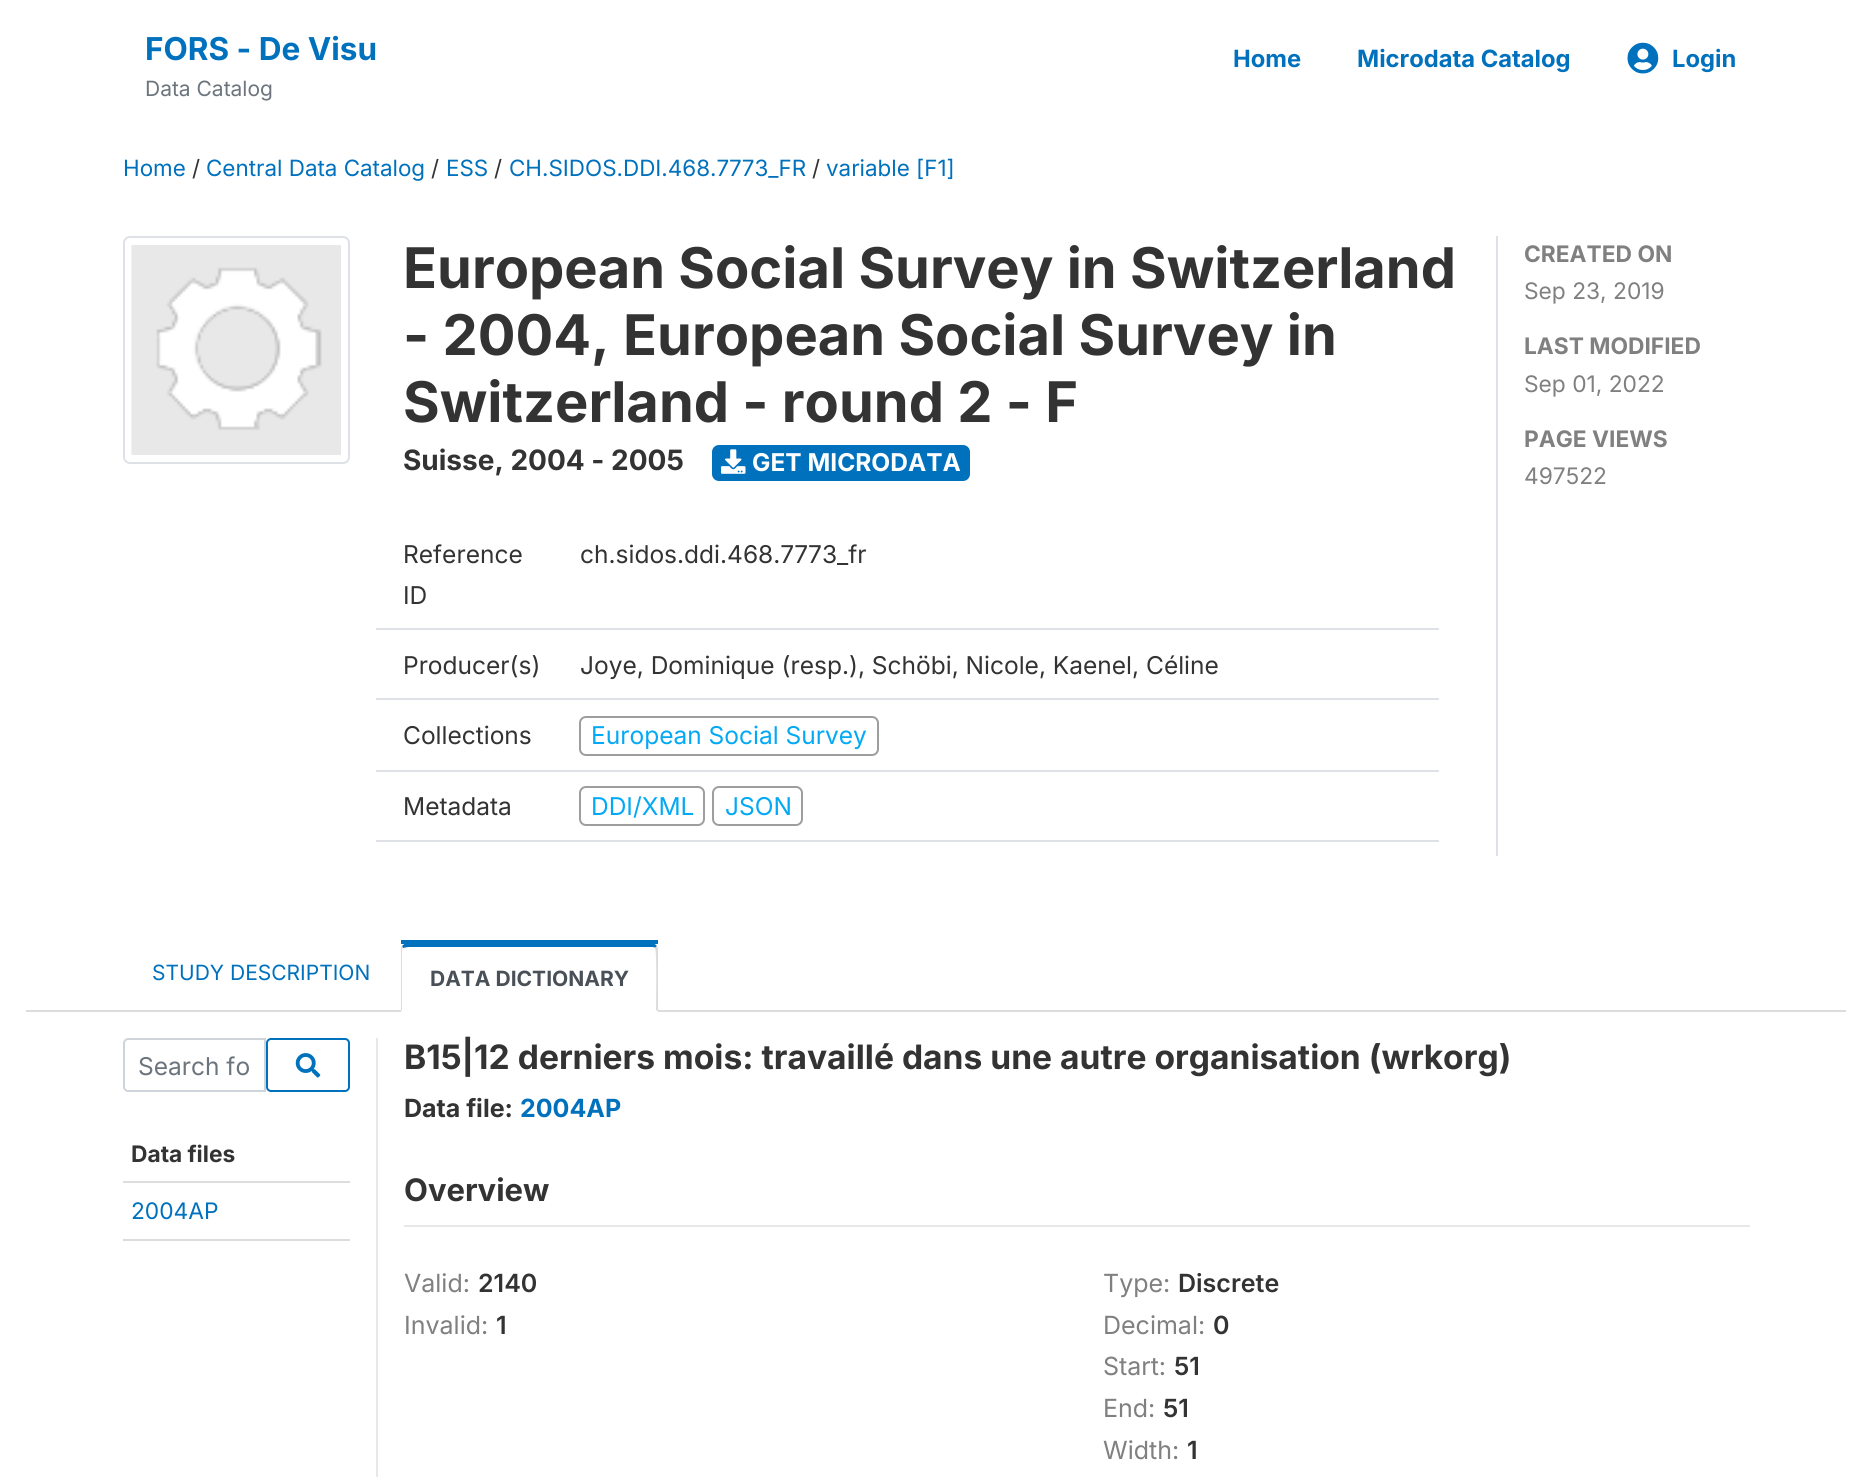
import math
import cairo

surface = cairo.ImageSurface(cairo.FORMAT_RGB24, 1872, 1477)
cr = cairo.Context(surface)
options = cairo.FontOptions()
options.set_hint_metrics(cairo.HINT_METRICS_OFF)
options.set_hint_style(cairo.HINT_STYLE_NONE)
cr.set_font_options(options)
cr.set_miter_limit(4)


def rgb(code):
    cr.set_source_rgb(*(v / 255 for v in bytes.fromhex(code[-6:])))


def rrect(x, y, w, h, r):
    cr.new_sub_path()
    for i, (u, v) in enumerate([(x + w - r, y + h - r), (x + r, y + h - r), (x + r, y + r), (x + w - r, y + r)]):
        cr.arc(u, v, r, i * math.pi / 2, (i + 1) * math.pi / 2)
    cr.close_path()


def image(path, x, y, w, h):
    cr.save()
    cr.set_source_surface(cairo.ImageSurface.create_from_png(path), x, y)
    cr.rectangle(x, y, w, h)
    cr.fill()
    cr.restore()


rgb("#ffffff")
cr.paint()
image("img/1.png", 1627, 42, 32, 32)
rgb("#dcdcdc")
cr.rectangle(26, 1010, 1820, 2)
cr.fill()
rrect(124, 237, 225, 226, 6)
rgb("#dee2e6")
cr.stroke()
image("img/2.png", 131, 245, 210, 210)
rgb("#0071bd")
rrect(712, 445, 258, 36, 7)
cr.fill()
image("img/3.png", 721, 449, 25, 25)
for x, y, w, h, color in [
    (376, 628, 1063, 2, "#dee2e6"),
    (376, 698, 1063, 2, "#dee2e6"),
    (376, 770, 1063, 2, "#dee2e6"),
]:
    rgb(color)
    cr.rectangle(x, y, w, h)
    cr.fill()
rrect(580, 717, 298, 38, 6)
rgb("#9e9e9e")
cr.stroke()
rgb("#dee2e6")
cr.rectangle(376, 840, 1063, 2)
cr.fill()
rrect(580, 787, 124, 38, 6)
rgb("#9e9e9e")
cr.stroke()
rrect(713, 787, 89, 38, 6)
cr.stroke()
for x, y, w, h, color in [
    (1496, 236, 2, 620, "#dee2e6"),
    (401, 1010, 257, 2, "#ffffff"),
    (401, 940, 257, 4, "#0071bc"),
]:
    rgb(color)
    cr.rectangle(x, y, w, h)
    cr.fill()
cr.new_path()
cr.move_to(408, 947)
cr.line_to(403, 948)
cr.line_to(402, 946)
cr.curve_to(403, 945, 404, 944, 406, 943)
cr.line_to(653, 943)
cr.curve_to(655, 944, 656, 945, 657, 946)
cr.line_to(655, 948)
cr.curve_to(655, 947, 653, 947, 651, 947)
cr.close_path()
cr.fill()
rgb("#dcdcdc")
cr.new_path()
cr.move_to(658, 1012)
cr.line_to(658, 950)
cr.curve_to(658, 948, 658, 947, 657, 946)
cr.line_to(655, 948)
cr.curve_to(657, 950, 656, 1003, 656, 1010)
cr.close_path()
cr.fill()
rgb("#ffffff")
cr.new_path()
cr.move_to(658, 1012)
cr.line_to(401, 1012)
cr.line_to(402, 1010)
cr.line_to(656, 1010)
cr.close_path()
cr.fill()
rgb("#dcdcdc")
cr.new_path()
cr.move_to(401, 1011)
cr.line_to(401, 950)
cr.curve_to(401, 949, 401, 947, 402, 946)
cr.line_to(403, 948)
cr.line_to(402, 950)
cr.line_to(402, 1010)
cr.close_path()
cr.fill()
cr.new_path()
cr.move_to(128, 1039)
cr.line_to(265, 1039)
cr.line_to(265, 1091)
cr.line_to(128, 1091)
cr.curve_to(126, 1091, 124, 1089, 124, 1087)
cr.line_to(124, 1043)
cr.curve_to(124, 1041, 126, 1039, 128, 1039)
cr.close_path()
rgb("#ced4da")
cr.stroke()
rrect(267, 1039, 82, 52, 4)
rgb("#0071bd")
cr.stroke()
image("img/4.png", 295, 1053, 26, 25)
for x, y, w, h, color in [
    (123, 1181, 227, 2, "#dddddd"),
    (123, 1239, 227, 2, "#dcdcdc"),
    (376, 1038, 2, 439, "#e8e8e8"),
    (404, 1225, 1346, 2, "#e8e8e8"),
]:
    rgb(color)
    cr.rectangle(x, y, w, h)
    cr.fill()
cr.select_font_face("Inter", cairo.FONT_SLANT_NORMAL, cairo.FONT_WEIGHT_BOLD)
cr.set_font_size(31.5)
rgb("#0071bd")
cr.move_to(145, 60)
cr.show_text("FORS - De Visu")
cr.select_font_face("Inter")
cr.set_font_size(21)
rgb("#6c757d")
cr.move_to(145, 96)
cr.show_text("Data Catalog")
cr.select_font_face("Inter", cairo.FONT_SLANT_NORMAL, cairo.FONT_WEIGHT_BOLD)
cr.set_font_size(23.75)
rgb("#0071bd")
for x, y, s in [
    (1233, 67, "Home"),
    (1357, 67, "Microdata Catalog"),
    (1672, 67, "Login"),
]:
    cr.move_to(x, y)
    cr.show_text(s)
cr.select_font_face("Inter")
cr.set_font_size(22.4)
cr.move_to(123, 176)
cr.show_text("Home")
rgb("#333333")
cr.move_to(192, 176)
cr.show_text("/")
rgb("#0071bd")
cr.move_to(206, 176)
cr.show_text("Central Data Catalog")
rgb("#333333")
cr.move_to(431, 176)
cr.show_text("/")
rgb("#0071bd")
cr.move_to(446, 176)
cr.show_text("ESS")
rgb("#333333")
cr.move_to(494, 176)
cr.show_text("/")
rgb("#0071bd")
cr.move_to(509, 176)
cr.show_text("CH.SIDOS.DDI.468.7773_FR")
rgb("#333333")
cr.move_to(812, 176)
cr.show_text("/")
rgb("#0071bd")
cr.move_to(826, 176)
cr.show_text("variable [F1]")
cr.select_font_face("Inter", cairo.FONT_SLANT_NORMAL, cairo.FONT_WEIGHT_BOLD)
cr.set_font_size(56)
rgb("#333333")
for x, y, s in [
    (403, 288, "European Social Survey in Switzerland"),
    (403, 355, "- 2004, European Social Survey in"),
    (403, 422, "Switzerland - round 2 - F"),
]:
    cr.move_to(x, y)
    cr.show_text(s)
cr.set_font_size(28)
cr.move_to(403, 470)
cr.show_text("Suisse, 2004 - 2005")
cr.set_font_size(24.5)
rgb("#ffffff")
cr.move_to(752, 471)
cr.show_text("GET MICRODATA")
cr.select_font_face("Inter")
rgb("#333333")
for x, y, s in [
    (403, 563, "Reference"),
    (403, 604, "ID"),
    (580, 563, "ch.sidos.ddi.468.7773_fr"),
    (403, 674, "Producer(s)"),
    (580, 674, "Joye, Dominique (resp.), Schöbi, Nicole, Kaenel, Céline"),
    (403, 744, "Collections"),
]:
    cr.move_to(x, y)
    cr.show_text(s)
rgb("#03a9f4")
cr.move_to(591, 744)
cr.show_text("European Social Survey")
rgb("#333333")
cr.move_to(403, 815)
cr.show_text("Metadata")
rgb("#03a9f4")
cr.move_to(591, 815)
cr.show_text("DDI/XML")
cr.move_to(725, 815)
cr.show_text("JSON")
cr.select_font_face("Inter", cairo.FONT_SLANT_NORMAL, cairo.FONT_WEIGHT_BOLD)
cr.set_font_size(22.75)
rgb("#808080")
cr.move_to(1524, 262)
cr.show_text("CREATED ON")
cr.select_font_face("Inter")
cr.move_to(1524, 299)
cr.show_text("Sep 23, 2019")
cr.select_font_face("Inter", cairo.FONT_SLANT_NORMAL, cairo.FONT_WEIGHT_BOLD)
cr.move_to(1524, 354)
cr.show_text("LAST MODIFIED")
cr.select_font_face("Inter")
cr.move_to(1524, 392)
cr.show_text("Sep 01, 2022")
cr.select_font_face("Inter", cairo.FONT_SLANT_NORMAL, cairo.FONT_WEIGHT_BOLD)
cr.move_to(1524, 447)
cr.show_text("PAGE VIEWS")
cr.select_font_face("Inter")
cr.move_to(1524, 484)
cr.show_text("497522")
cr.set_font_size(21)
rgb("#0071bd")
cr.move_to(152, 980)
cr.show_text("STUDY DESCRIPTION")
cr.select_font_face("Inter", cairo.FONT_SLANT_NORMAL, cairo.FONT_WEIGHT_BOLD)
rgb("#495057")
cr.move_to(430, 986)
cr.show_text("DATA DICTIONARY")
cr.select_font_face("Inter")
cr.set_font_size(24.5)
rgb("#6c757d")
cr.move_to(138, 1075)
cr.show_text("Search fo")
cr.select_font_face("Inter", cairo.FONT_SLANT_NORMAL, cairo.FONT_WEIGHT_BOLD)
cr.set_font_size(22.75)
rgb("#333333")
cr.move_to(131, 1162)
cr.show_text("Data files")
cr.select_font_face("Inter")
rgb("#0071bd")
cr.move_to(131, 1219)
cr.show_text("2004AP")
cr.select_font_face("Inter", cairo.FONT_SLANT_NORMAL, cairo.FONT_WEIGHT_BOLD)
cr.set_font_size(33.6)
rgb("#333333")
cr.move_to(404, 1069)
cr.show_text("B15|12 derniers mois: travaillé dans une autre organisation (wrkorg)")
cr.set_font_size(25)
cr.move_to(404, 1117)
cr.show_text("Data file:")
rgb("#0071bd")
cr.move_to(520, 1117)
cr.show_text("2004AP")
cr.set_font_size(31)
rgb("#333333")
cr.move_to(404, 1201)
cr.show_text("Overview")
cr.select_font_face("Inter")
cr.set_font_size(25)
rgb("#808080")
cr.move_to(404, 1292)
cr.show_text("Valid:")
cr.select_font_face("Inter SemiBold")
rgb("#333333")
cr.move_to(478, 1292)
cr.show_text("2140")
cr.select_font_face("Inter")
rgb("#808080")
cr.move_to(404, 1334)
cr.show_text("Invalid:")
cr.select_font_face("Inter SemiBold")
rgb("#333333")
cr.move_to(496, 1334)
cr.show_text("1")
cr.select_font_face("Inter")
rgb("#808080")
cr.move_to(1103, 1292)
cr.show_text("Type:")
cr.select_font_face("Inter SemiBold")
rgb("#333333")
cr.move_to(1178, 1292)
cr.show_text("Discrete")
cr.select_font_face("Inter")
rgb("#808080")
cr.move_to(1103, 1334)
cr.show_text("Decimal:")
cr.select_font_face("Inter SemiBold")
rgb("#333333")
cr.move_to(1213, 1334)
cr.show_text("0")
cr.select_font_face("Inter")
rgb("#808080")
cr.move_to(1103, 1375)
cr.show_text("Start:")
cr.select_font_face("Inter SemiBold")
rgb("#333333")
cr.move_to(1174, 1375)
cr.show_text("51")
cr.select_font_face("Inter")
rgb("#808080")
cr.move_to(1103, 1417)
cr.show_text("End:")
cr.select_font_face("Inter SemiBold")
rgb("#333333")
cr.move_to(1163, 1417)
cr.show_text("51")
cr.select_font_face("Inter")
rgb("#808080")
cr.move_to(1103, 1459)
cr.show_text("Width:")
cr.select_font_face("Inter SemiBold")
rgb("#333333")
cr.move_to(1187, 1459)
cr.show_text("1")
surface.write_to_png("page.png")
